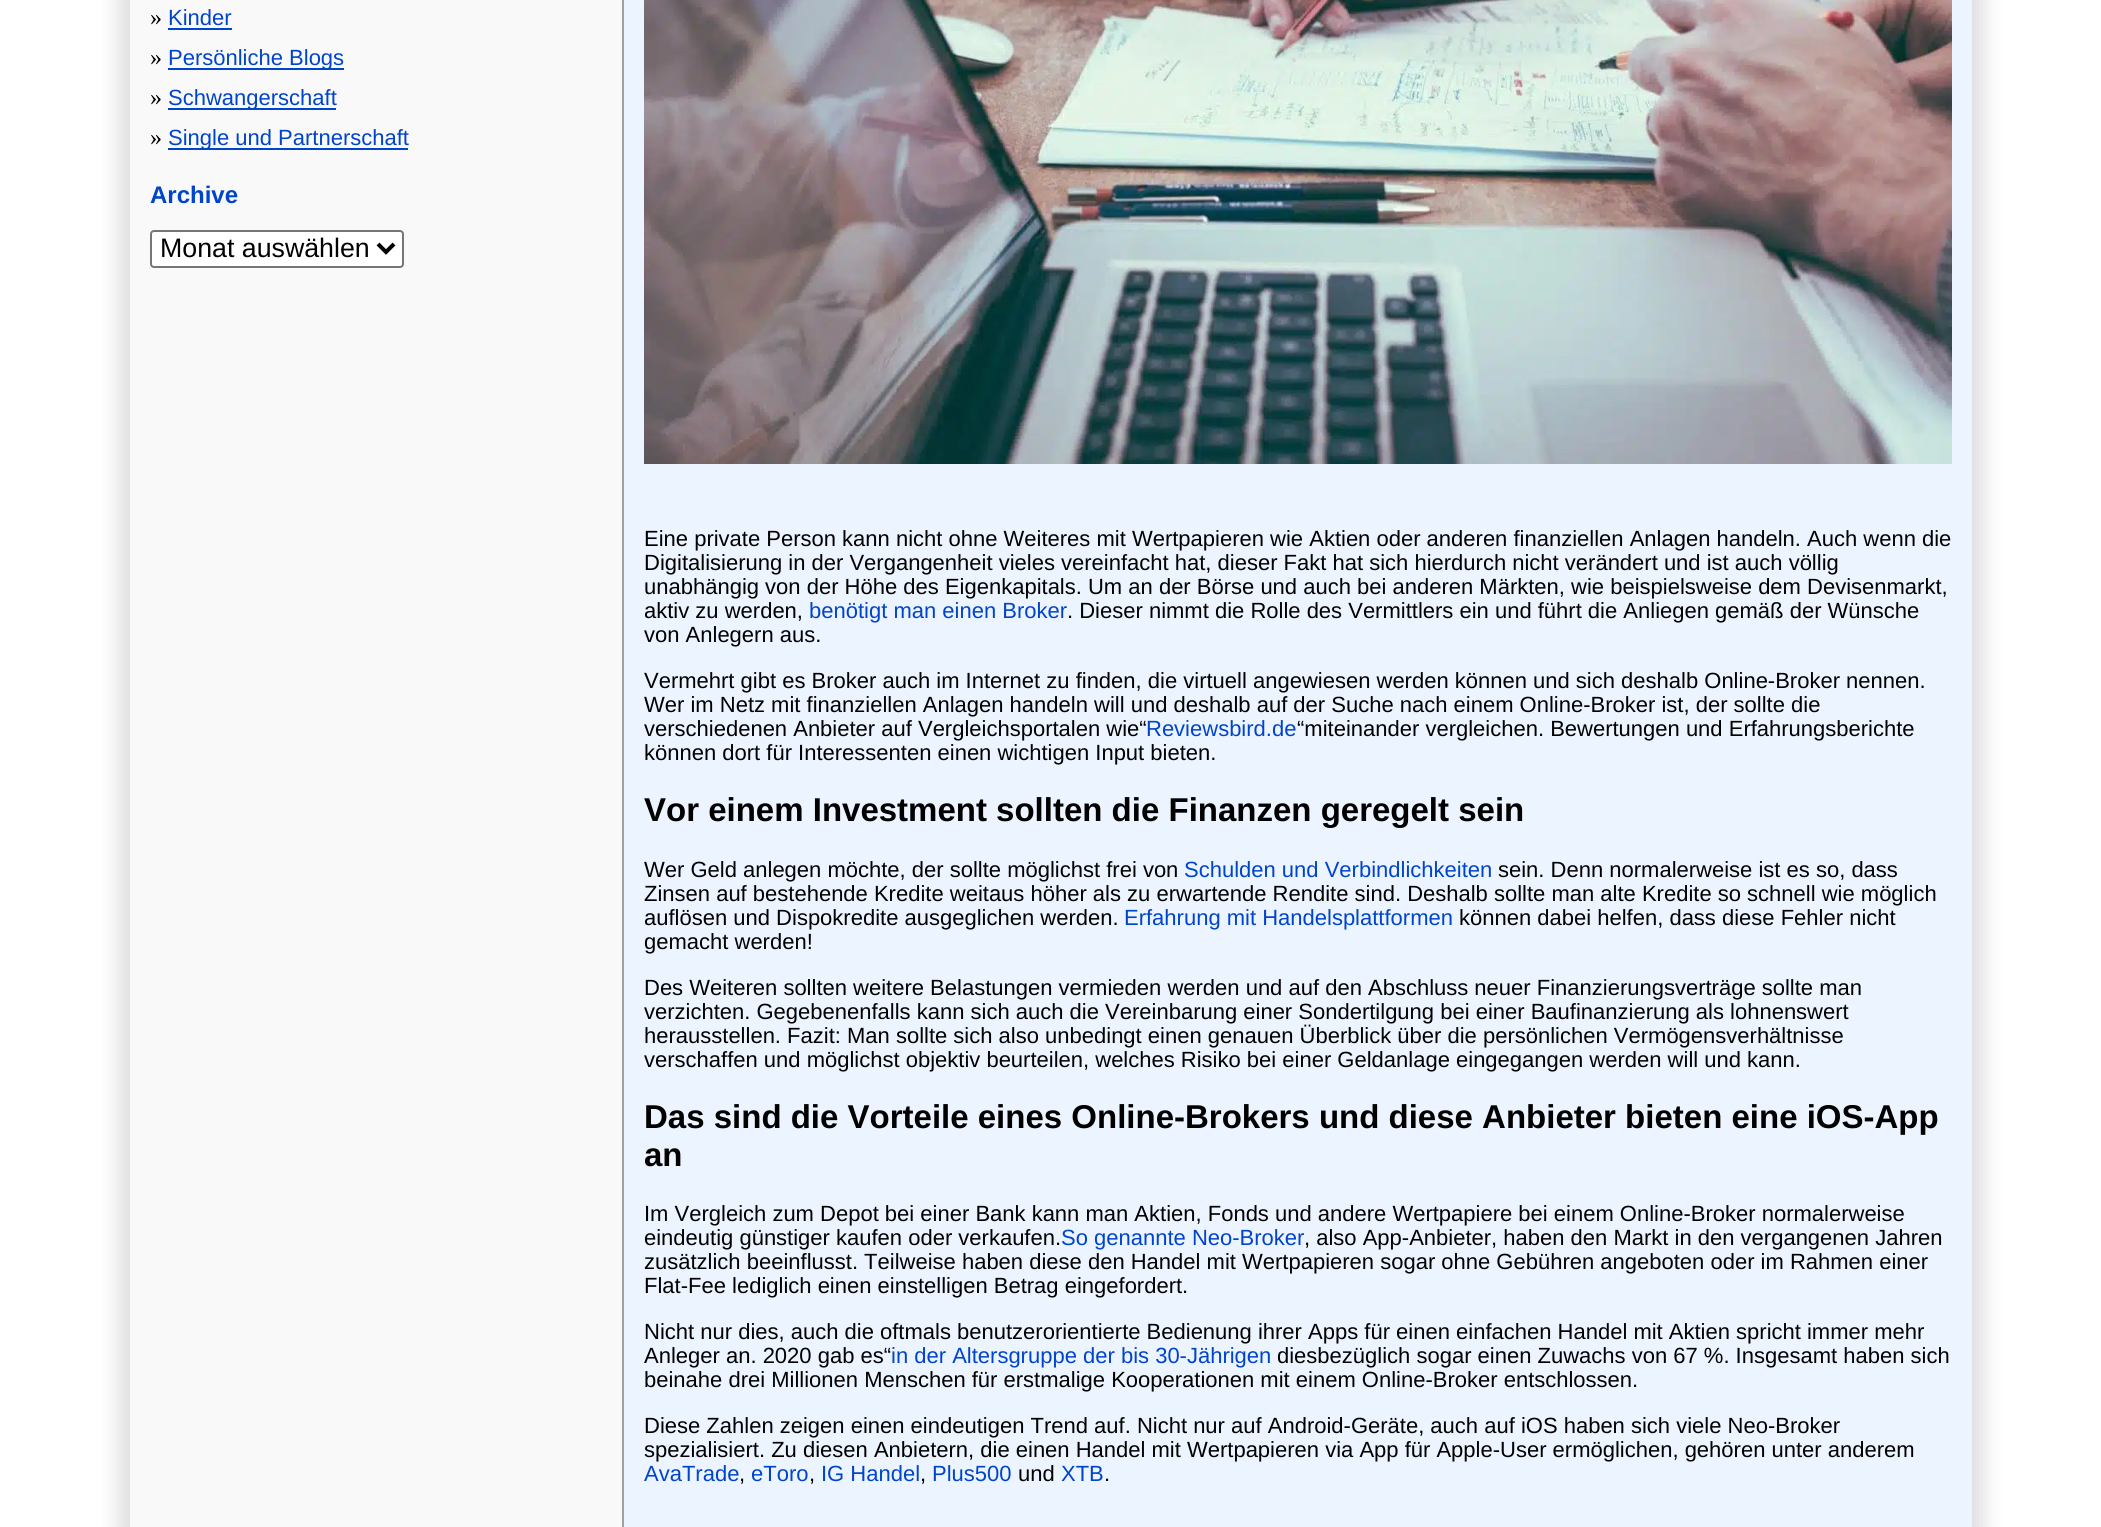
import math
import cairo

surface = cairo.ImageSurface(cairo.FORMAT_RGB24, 2101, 1527)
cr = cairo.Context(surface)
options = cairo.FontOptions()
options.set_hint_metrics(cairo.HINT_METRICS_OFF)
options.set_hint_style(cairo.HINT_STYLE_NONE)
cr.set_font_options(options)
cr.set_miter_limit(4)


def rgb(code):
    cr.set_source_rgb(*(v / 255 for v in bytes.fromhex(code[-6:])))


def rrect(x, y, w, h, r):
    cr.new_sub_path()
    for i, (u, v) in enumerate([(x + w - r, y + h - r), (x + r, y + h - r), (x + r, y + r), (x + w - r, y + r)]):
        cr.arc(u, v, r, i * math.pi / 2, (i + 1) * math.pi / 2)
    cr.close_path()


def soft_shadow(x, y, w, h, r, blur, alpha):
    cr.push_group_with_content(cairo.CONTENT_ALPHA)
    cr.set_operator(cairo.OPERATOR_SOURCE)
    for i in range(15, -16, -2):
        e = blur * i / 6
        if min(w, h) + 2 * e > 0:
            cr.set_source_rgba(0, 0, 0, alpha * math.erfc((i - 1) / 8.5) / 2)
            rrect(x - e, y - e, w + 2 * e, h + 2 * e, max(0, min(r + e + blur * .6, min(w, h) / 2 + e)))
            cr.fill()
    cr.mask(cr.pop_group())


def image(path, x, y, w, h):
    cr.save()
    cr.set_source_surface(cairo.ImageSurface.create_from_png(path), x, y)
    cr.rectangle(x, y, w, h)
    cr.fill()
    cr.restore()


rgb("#ffffff")
cr.paint()
rgb("#000000")
soft_shadow(118, -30, 1866, 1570, 0, 10, 0.13)
for x, y, w, h, color in [
    (130, 0, 492, 1527, "#f9f9f9"),
    (622, 0, 2, 1527, "#a0a0a0"),
    (168, 28, 64, 2, "#0044cc"),
    (168, 68, 176, 2, "#0044cc"),
    (168, 108, 168, 2, "#0044cc"),
    (168, 148, 240, 2, "#0044cc"),
]:
    rgb(color)
    cr.rectangle(x, y, w, h)
    cr.fill()
rgb("#ffffff")
rrect(151, 231, 252, 36, 3)
cr.fill_preserve()
rgb("#767676")
cr.stroke()
cr.new_path()
cr.move_to(378, 244)
cr.line_to(386, 252)
cr.line_to(394, 244)
rgb("#000000")
cr.set_line_width(4)
cr.stroke()
rgb("#ecf4ff")
cr.rectangle(624, 0, 1348, 1527)
cr.fill()
image("img/1.png", 644, 0, 1308, 464)
cr.select_font_face("Liberation Serif")
cr.set_font_size(24)
rgb("#000000")
cr.move_to(150, 25)
cr.show_text("»")
cr.select_font_face("Liberation Sans")
cr.set_font_size(22)
rgb("#0044cc")
cr.move_to(168, 25)
cr.show_text("Kinder")
cr.select_font_face("Liberation Serif")
cr.set_font_size(24)
rgb("#000000")
cr.move_to(150, 65)
cr.show_text("»")
cr.select_font_face("Liberation Sans")
cr.set_font_size(22)
rgb("#0044cc")
cr.move_to(168, 65)
cr.show_text("Persönliche Blogs")
cr.select_font_face("Liberation Serif")
cr.set_font_size(24)
rgb("#000000")
cr.move_to(150, 105)
cr.show_text("»")
cr.select_font_face("Liberation Sans")
cr.set_font_size(22)
rgb("#0044cc")
cr.move_to(168, 105)
cr.show_text("Schwangerschaft")
cr.select_font_face("Liberation Serif")
cr.set_font_size(24)
rgb("#000000")
cr.move_to(150, 145)
cr.show_text("»")
cr.select_font_face("Liberation Sans")
cr.set_font_size(22)
rgb("#0044cc")
cr.move_to(168, 145)
cr.show_text("Single und Partnerschaft")
cr.select_font_face("Liberation Sans", cairo.FONT_SLANT_NORMAL, cairo.FONT_WEIGHT_BOLD)
cr.set_font_size(24)
cr.move_to(150, 203)
cr.show_text("Archive")
cr.select_font_face("Liberation Sans")
cr.set_font_size(26.75)
rgb("#000000")
cr.move_to(160, 257)
cr.show_text("Monat auswählen")
cr.set_font_size(22)
for x, y, s in [
    (644, 546, "Eine private Person kann nicht ohne Weiteres mit Wertpapieren wie Aktien oder anderen finanziellen Anlagen handeln. Auch wenn die"),
    (644, 570, "Digitalisierung in der Vergangenheit vieles vereinfacht hat, dieser Fakt hat sich hierdurch nicht verändert und ist auch völlig"),
    (644, 594, "unabhängig von der Höhe des Eigenkapitals. Um an der Börse und auch bei anderen Märkten, wie beispielsweise dem Devisenmarkt,"),
    (644, 618, "aktiv zu werden,"),
]:
    cr.move_to(x, y)
    cr.show_text(s)
rgb("#0044cc")
cr.move_to(809, 618)
cr.show_text("benötigt man einen Broker")
rgb("#000000")
for x, y, s in [
    (1067, 618, ". Dieser nimmt die Rolle des Vermittlers ein und führt die Anliegen gemäß der Wünsche"),
    (644, 642, "von Anlegern aus."),
    (644, 688, "Vermehrt gibt es Broker auch im Internet zu finden, die virtuell angewiesen werden können und sich deshalb Online-Broker nennen."),
    (644, 712, "Wer im Netz mit finanziellen Anlagen handeln will und deshalb auf der Suche nach einem Online-Broker ist, der sollte die"),
    (644, 736, "verschiedenen Anbieter auf Vergleichsportalen wie“"),
]:
    cr.move_to(x, y)
    cr.show_text(s)
rgb("#0044cc")
cr.move_to(1146, 736)
cr.show_text("Reviewsbird.de")
rgb("#000000")
cr.move_to(1297, 736)
cr.show_text("“miteinander vergleichen. Bewertungen und Erfahrungsberichte")
cr.move_to(644, 760)
cr.show_text("können dort für Interessenten einen wichtigen Input bieten.")
cr.select_font_face("Liberation Sans", cairo.FONT_SLANT_NORMAL, cairo.FONT_WEIGHT_BOLD)
cr.set_font_size(33)
cr.move_to(644, 821)
cr.show_text("Vor einem Investment sollten die Finanzen geregelt sein")
cr.select_font_face("Liberation Sans")
cr.set_font_size(22)
cr.move_to(644, 877)
cr.show_text("Wer Geld anlegen möchte, der sollte möglichst frei von")
rgb("#0044cc")
cr.move_to(1184, 877)
cr.show_text("Schulden und Verbindlichkeiten")
rgb("#000000")
for x, y, s in [
    (1498, 877, "sein. Denn normalerweise ist es so, dass"),
    (644, 901, "Zinsen auf bestehende Kredite weitaus höher als zu erwartende Rendite sind. Deshalb sollte man alte Kredite so schnell wie möglich"),
    (644, 925, "auflösen und Dispokredite ausgeglichen werden."),
]:
    cr.move_to(x, y)
    cr.show_text(s)
rgb("#0044cc")
cr.move_to(1124, 925)
cr.show_text("Erfahrung mit Handelsplattformen")
rgb("#000000")
for x, y, s in [
    (1459, 925, "können dabei helfen, dass diese Fehler nicht"),
    (644, 949, "gemacht werden!"),
    (644, 995, "Des Weiteren sollten weitere Belastungen vermieden werden und auf den Abschluss neuer Finanzierungsverträge sollte man"),
    (644, 1019, "verzichten. Gegebenenfalls kann sich auch die Vereinbarung einer Sondertilgung bei einer Baufinanzierung als lohnenswert"),
    (644, 1043, "herausstellen. Fazit: Man sollte sich also unbedingt einen genauen Überblick über die persönlichen Vermögensverhältnisse"),
    (644, 1067, "verschaffen und möglichst objektiv beurteilen, welches Risiko bei einer Geldanlage eingegangen werden will und kann."),
]:
    cr.move_to(x, y)
    cr.show_text(s)
cr.select_font_face("Liberation Sans", cairo.FONT_SLANT_NORMAL, cairo.FONT_WEIGHT_BOLD)
cr.set_font_size(33)
cr.move_to(644, 1128)
cr.show_text("Das sind die Vorteile eines Online-Brokers und diese Anbieter bieten eine iOS-App")
cr.move_to(644, 1166)
cr.show_text("an")
cr.select_font_face("Liberation Sans")
cr.set_font_size(22)
cr.move_to(644, 1221)
cr.show_text("Im Vergleich zum Depot bei einer Bank kann man Aktien, Fonds und andere Wertpapiere bei einem Online-Broker normalerweise")
cr.move_to(644, 1245)
cr.show_text("eindeutig günstiger kaufen oder verkaufen.")
rgb("#0044cc")
cr.move_to(1061, 1245)
cr.show_text("So genannte Neo-Broker")
rgb("#000000")
for x, y, s in [
    (1304, 1245, ", also App-Anbieter, haben den Markt in den vergangenen Jahren"),
    (644, 1269, "zusätzlich beeinflusst. Teilweise haben diese den Handel mit Wertpapieren sogar ohne Gebühren angeboten oder im Rahmen einer"),
    (644, 1293, "Flat-Fee lediglich einen einstelligen Betrag eingefordert."),
    (644, 1339, "Nicht nur dies, auch die oftmals benutzerorientierte Bedienung ihrer Apps für einen einfachen Handel mit Aktien spricht immer mehr"),
    (644, 1363, "Anleger an. 2020 gab es“"),
]:
    cr.move_to(x, y)
    cr.show_text(s)
rgb("#0044cc")
cr.move_to(891, 1363)
cr.show_text("in der Altersgruppe der bis 30-Jährigen")
rgb("#000000")
for x, y, s in [
    (1277, 1363, "diesbezüglich sogar einen Zuwachs von 67 %. Insgesamt haben sich"),
    (644, 1387, "beinahe drei Millionen Menschen für erstmalige Kooperationen mit einem Online-Broker entschlossen."),
    (644, 1433, "Diese Zahlen zeigen einen eindeutigen Trend auf. Nicht nur auf Android-Geräte, auch auf iOS haben sich viele Neo-Broker"),
    (644, 1457, "spezialisiert. Zu diesen Anbietern, die einen Handel mit Wertpapieren via App für Apple-User ermöglichen, gehören unter anderem"),
]:
    cr.move_to(x, y)
    cr.show_text(s)
rgb("#0044cc")
cr.move_to(644, 1481)
cr.show_text("AvaTrade")
rgb("#000000")
cr.move_to(739, 1481)
cr.show_text(",")
rgb("#0044cc")
cr.move_to(751, 1481)
cr.show_text("eToro")
rgb("#000000")
cr.move_to(809, 1481)
cr.show_text(",")
rgb("#0044cc")
cr.move_to(821, 1481)
cr.show_text("IG Handel")
rgb("#000000")
cr.move_to(920, 1481)
cr.show_text(",")
rgb("#0044cc")
cr.move_to(932, 1481)
cr.show_text("Plus500")
rgb("#000000")
cr.move_to(1018, 1481)
cr.show_text("und")
rgb("#0044cc")
cr.move_to(1061, 1481)
cr.show_text("XTB")
rgb("#000000")
cr.move_to(1104, 1481)
cr.show_text(".")
surface.write_to_png("page.png")
